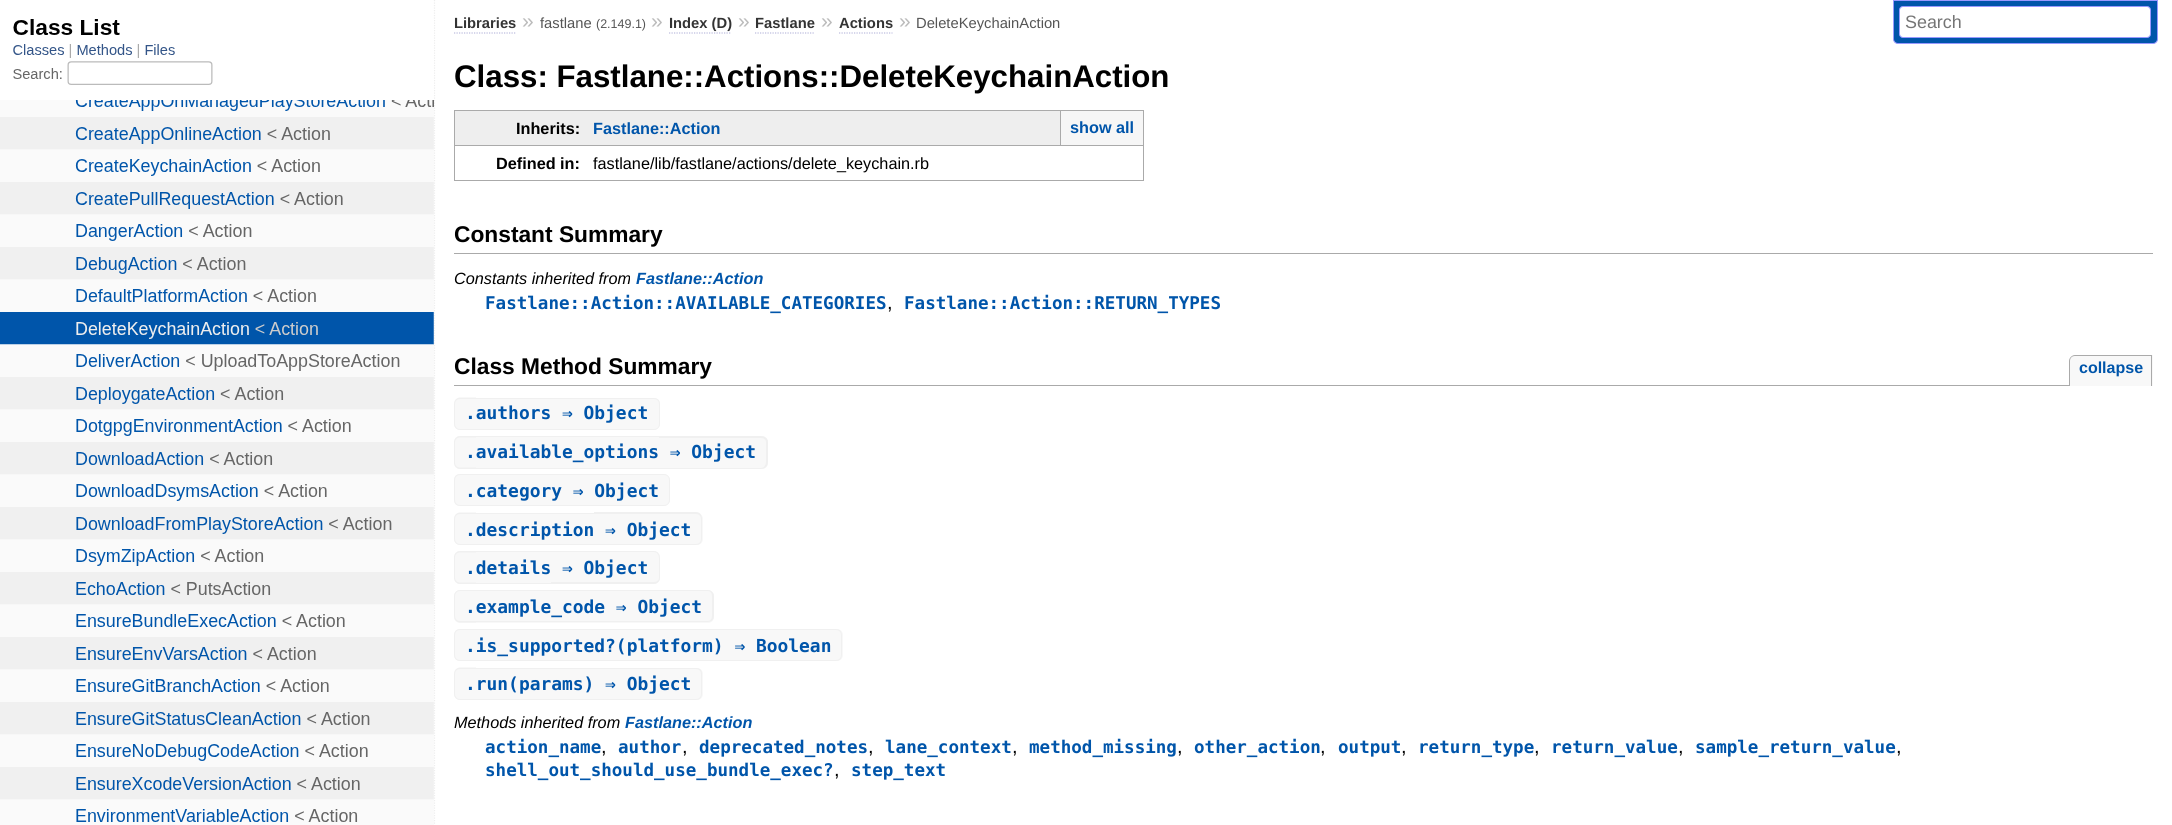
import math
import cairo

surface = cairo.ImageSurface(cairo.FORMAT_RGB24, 2172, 825)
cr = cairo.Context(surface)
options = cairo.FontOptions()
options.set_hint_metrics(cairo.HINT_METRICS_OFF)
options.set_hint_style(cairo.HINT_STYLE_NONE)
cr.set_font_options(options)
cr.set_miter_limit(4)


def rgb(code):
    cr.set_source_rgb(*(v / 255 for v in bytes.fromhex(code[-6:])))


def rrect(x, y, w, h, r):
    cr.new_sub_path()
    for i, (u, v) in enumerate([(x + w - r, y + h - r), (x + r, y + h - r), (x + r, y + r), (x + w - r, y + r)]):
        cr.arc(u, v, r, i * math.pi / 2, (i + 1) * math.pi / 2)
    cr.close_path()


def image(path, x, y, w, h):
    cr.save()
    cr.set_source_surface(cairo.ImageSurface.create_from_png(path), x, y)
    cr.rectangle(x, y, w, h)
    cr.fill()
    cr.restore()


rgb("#ffffff")
cr.paint()
cr.new_path()
cr.move_to(434.5, 0)
cr.line_to(434.5, 825)
rgb("#eeeeee")
cr.set_line_width(1.2)
cr.set_dash([1.25, 1.25])
cr.stroke()
image("img/1.png", 0, 19, 434, 806)
cr.new_path()
cr.move_to(454, 33)
cr.line_to(516, 33)
rgb("#bbbbdd")
cr.stroke()
cr.new_path()
cr.move_to(669, 33)
cr.line_to(731, 33)
cr.stroke()
cr.new_path()
cr.move_to(755, 33)
cr.line_to(815, 33)
cr.stroke()
cr.new_path()
cr.move_to(839, 33)
cr.line_to(892.5, 33)
cr.stroke()
rgb("#0055aa")
cr.new_path()
cr.move_to(1893.5, 0.5)
cr.line_to(2157.5, 0.5)
cr.line_to(2157.5, 39)
cr.curve_to(2157.5, 41.5, 2155.5, 43.5, 2153, 43.5)
cr.line_to(1898, 43.5)
cr.curve_to(1895.5, 43.5, 1893.5, 41.5, 1893.5, 39)
cr.close_path()
cr.fill_preserve()
rgb("#9999ff")
cr.set_line_width(1)
cr.set_dash([])
cr.stroke()
rgb("#ffffff")
rrect(1899.5, 6.5, 251, 31, 3.5)
cr.fill_preserve()
rgb("#9999ff")
cr.stroke()
for x, y, w, h, color in [
    (455, 111, 605, 34, "#eeeeee"),
    (454, 110, 690, 1, "#aaaaaa"),
    (454, 110, 1, 35, "#aaaaaa"),
    (454, 145, 690, 1, "#aaaaaa"),
    (1143, 110, 1, 71, "#aaaaaa"),
    (1061, 111, 82, 34, "#f6f6f6"),
    (1060, 111, 1, 34, "#aaaaaa"),
    (454, 180, 139, 1, "#aaaaaa"),
    (454, 145, 1, 36, "#aaaaaa"),
    (593, 180, 551, 1, "#aaaaaa"),
    (454, 253, 1699, 1, "#aaaaaa"),
    (454, 385, 1615, 1, "#aaaaaa"),
]:
    rgb(color)
    cr.rectangle(x, y, w, h)
    cr.fill()
rgb("#f8f8f8")
cr.new_path()
cr.move_to(2075, 355)
cr.line_to(2153, 355)
cr.line_to(2153, 386)
cr.line_to(2069, 386)
cr.line_to(2069, 361)
cr.curve_to(2069, 357.5, 2071.5, 355, 2075, 355)
cr.close_path()
cr.fill()
rgb("#aaaaaa")
cr.set_fill_rule(cairo.FILL_RULE_EVEN_ODD)
cr.new_path()
cr.move_to(2075, 355)
cr.line_to(2152, 355)
cr.line_to(2152, 386)
cr.line_to(2069, 386)
cr.line_to(2069, 361)
cr.curve_to(2069, 358, 2072, 355, 2075, 355)
cr.close_path()
cr.move_to(2075, 356)
cr.line_to(2151, 356)
cr.line_to(2151, 386)
cr.line_to(2070, 386)
cr.line_to(2070, 361)
cr.curve_to(2070, 358, 2072, 356, 2075, 356)
cr.close_path()
cr.fill()
rgb("#f8f8f8")
cr.new_path()
cr.move_to(460, 398)
cr.line_to(476, 398)
cr.line_to(476, 430)
cr.line_to(460, 430)
cr.curve_to(456.5, 430, 454, 427.5, 454, 424)
cr.line_to(454, 404)
cr.curve_to(454, 400.5, 456.5, 398, 460, 398)
cr.close_path()
cr.fill()
rgb("#f0f0f0")
cr.new_path()
cr.move_to(460, 397.5)
cr.line_to(476, 397.5)
cr.line_to(476, 430)
cr.line_to(460, 430)
cr.curve_to(456.5, 430, 454, 427, 454, 424)
cr.line_to(454, 404)
cr.curve_to(454, 400.5, 456.5, 397.5, 460, 397.5)
cr.close_path()
cr.move_to(460, 399)
cr.line_to(476, 399)
cr.line_to(476, 429)
cr.line_to(460, 429)
cr.curve_to(457, 429, 455, 426.5, 455, 424)
cr.line_to(455, 404)
cr.curve_to(455, 401, 457, 399, 460, 399)
cr.close_path()
cr.fill()
for x, y, w, h, color in [
    (476, 399, 75, 30, "#f8f8f8"),
    (476, 398, 75, 1, "#f0f0f0"),
    (476, 429, 75, 1, "#f0f0f0"),
]:
    rgb(color)
    cr.rectangle(x, y, w, h)
    cr.fill()
rgb("#f8f8f8")
cr.new_path()
cr.move_to(551, 398)
cr.line_to(654, 398)
cr.curve_to(657.5, 398, 660, 400.5, 660, 404)
cr.line_to(660, 424)
cr.curve_to(660, 427.5, 657.5, 430, 654, 430)
cr.line_to(551, 430)
cr.close_path()
cr.fill()
rgb("#f0f0f0")
cr.new_path()
cr.move_to(551, 398)
cr.line_to(654, 398)
cr.curve_to(657, 398, 660, 400, 660, 404)
cr.line_to(660, 424)
cr.curve_to(660, 427, 657, 430, 654, 430)
cr.line_to(551, 430)
cr.close_path()
cr.move_to(551, 399)
cr.line_to(654, 399)
cr.curve_to(657, 399, 659, 401, 659, 404)
cr.line_to(659, 424)
cr.curve_to(659, 427, 657, 429, 654, 429)
cr.line_to(551, 429)
cr.close_path()
cr.fill()
rgb("#f8f8f8")
cr.new_path()
cr.move_to(460, 436)
cr.line_to(476, 436)
cr.line_to(476, 469)
cr.line_to(460, 469)
cr.curve_to(456.5, 469, 454, 466.5, 454, 463)
cr.line_to(454, 442)
cr.curve_to(454, 438.5, 456.5, 436, 460, 436)
cr.close_path()
cr.fill()
rgb("#f0f0f0")
cr.new_path()
cr.move_to(460, 436)
cr.line_to(476, 436)
cr.line_to(476, 469)
cr.line_to(460, 469)
cr.curve_to(456.5, 469, 454, 466, 454, 462.5)
cr.line_to(454, 442.5)
cr.curve_to(454, 439, 456.5, 436, 460, 436)
cr.close_path()
cr.move_to(460, 437.5)
cr.line_to(476, 437.5)
cr.line_to(476, 467.5)
cr.line_to(460, 467.5)
cr.curve_to(457, 467.5, 455, 465.5, 455, 462.5)
cr.line_to(455, 442.5)
cr.curve_to(455, 439.5, 457, 437.5, 460, 437.5)
cr.close_path()
cr.fill()
for x, y, w, h, color in [
    (476, 437, 183, 31, "#f8f8f8"),
    (476, 436, 183, 1, "#f0f0f0"),
    (476, 468, 183, 1, "#f0f0f0"),
]:
    rgb(color)
    cr.rectangle(x, y, w, h)
    cr.fill()
rgb("#f8f8f8")
cr.new_path()
cr.move_to(659, 436)
cr.line_to(762, 436)
cr.curve_to(765.5, 436, 768, 438.5, 768, 442)
cr.line_to(768, 463)
cr.curve_to(768, 466.5, 765.5, 469, 762, 469)
cr.line_to(659, 469)
cr.close_path()
cr.fill()
rgb("#f0f0f0")
cr.new_path()
cr.move_to(659, 436)
cr.line_to(761, 436)
cr.curve_to(765, 436, 768, 439, 768, 442)
cr.line_to(768, 462)
cr.curve_to(768, 466, 765, 469, 761, 469)
cr.line_to(659, 469)
cr.close_path()
cr.move_to(659, 438)
cr.line_to(761, 438)
cr.curve_to(764, 438, 766, 440, 766, 442)
cr.line_to(766, 462)
cr.curve_to(766, 465, 764, 468, 761, 468)
cr.line_to(659, 468)
cr.close_path()
cr.fill()
rgb("#f8f8f8")
cr.new_path()
cr.move_to(460, 474)
cr.line_to(476, 474)
cr.line_to(476, 506)
cr.line_to(460, 506)
cr.curve_to(456.5, 506, 454, 503.5, 454, 500)
cr.line_to(454, 480)
cr.curve_to(454, 476.5, 456.5, 474, 460, 474)
cr.close_path()
cr.fill()
rgb("#f0f0f0")
cr.new_path()
cr.move_to(460, 474)
cr.line_to(476, 474)
cr.line_to(476, 506)
cr.line_to(460, 506)
cr.curve_to(456.5, 506, 454, 503.5, 454, 500)
cr.line_to(454, 480)
cr.curve_to(454, 476.5, 456.5, 474, 460, 474)
cr.close_path()
cr.move_to(460, 475)
cr.line_to(476, 475)
cr.line_to(476, 505)
cr.line_to(460, 505)
cr.curve_to(457, 505, 455, 503, 455, 500)
cr.line_to(455, 480)
cr.curve_to(455, 477, 457, 475, 460, 475)
cr.close_path()
cr.fill()
for x, y, w, h, color in [
    (476, 475, 87, 30, "#f8f8f8"),
    (476, 474, 87, 1, "#f0f0f0"),
    (476, 505, 87, 1, "#f0f0f0"),
]:
    rgb(color)
    cr.rectangle(x, y, w, h)
    cr.fill()
rgb("#f8f8f8")
cr.new_path()
cr.move_to(563, 474)
cr.line_to(664, 474)
cr.curve_to(667.5, 474, 670, 476.5, 670, 480)
cr.line_to(670, 500)
cr.curve_to(670, 503.5, 667.5, 506, 664, 506)
cr.line_to(563, 506)
cr.close_path()
cr.fill()
rgb("#f0f0f0")
cr.new_path()
cr.move_to(562, 474)
cr.line_to(664, 474)
cr.curve_to(667, 474, 670, 477, 670, 480)
cr.line_to(670, 500)
cr.curve_to(670, 503, 667, 506, 664, 506)
cr.line_to(562, 506)
cr.close_path()
cr.move_to(562, 475)
cr.line_to(664, 475)
cr.curve_to(667, 475, 669, 477, 669, 480)
cr.line_to(669, 500)
cr.curve_to(669, 503, 667, 505, 664, 505)
cr.line_to(562, 505)
cr.close_path()
cr.fill()
rgb("#f8f8f8")
cr.new_path()
cr.move_to(460, 513)
cr.line_to(476, 513)
cr.line_to(476, 545)
cr.line_to(460, 545)
cr.curve_to(456.5, 545, 454, 542.5, 454, 539)
cr.line_to(454, 519)
cr.curve_to(454, 515.5, 456.5, 513, 460, 513)
cr.close_path()
cr.fill()
rgb("#f0f0f0")
cr.new_path()
cr.move_to(460, 512.5)
cr.line_to(476, 512.5)
cr.line_to(476, 545)
cr.line_to(460, 545)
cr.curve_to(456.5, 545, 454, 542, 454, 539)
cr.line_to(454, 519)
cr.curve_to(454, 515.5, 456.5, 512.5, 460, 512.5)
cr.close_path()
cr.move_to(460, 514)
cr.line_to(476, 514)
cr.line_to(476, 544)
cr.line_to(460, 544)
cr.curve_to(457, 544, 455, 541.5, 455, 539)
cr.line_to(455, 519)
cr.curve_to(455, 516, 457, 514, 460, 514)
cr.close_path()
cr.fill()
for x, y, w, h, color in [
    (476, 514, 118, 30, "#f8f8f8"),
    (476, 513, 118, 1, "#f0f0f0"),
    (476, 544, 118, 1, "#f0f0f0"),
]:
    rgb(color)
    cr.rectangle(x, y, w, h)
    cr.fill()
rgb("#f8f8f8")
cr.new_path()
cr.move_to(594, 513)
cr.line_to(697, 513)
cr.curve_to(700.5, 513, 703, 515.5, 703, 519)
cr.line_to(703, 539)
cr.curve_to(703, 542.5, 700.5, 545, 697, 545)
cr.line_to(594, 545)
cr.close_path()
cr.fill()
rgb("#f0f0f0")
cr.new_path()
cr.move_to(594, 512)
cr.line_to(696, 512)
cr.curve_to(700, 512, 702, 515, 702, 519)
cr.line_to(702, 539)
cr.curve_to(702, 542, 700, 545, 696, 545)
cr.line_to(594, 545)
cr.close_path()
cr.move_to(594, 514)
cr.line_to(696, 514)
cr.curve_to(699, 514, 701, 516, 701, 519)
cr.line_to(701, 539)
cr.curve_to(701, 542, 699, 544, 696, 544)
cr.line_to(594, 544)
cr.close_path()
cr.fill()
rgb("#f8f8f8")
cr.new_path()
cr.move_to(460, 551)
cr.line_to(476, 551)
cr.line_to(476, 584)
cr.line_to(460, 584)
cr.curve_to(456.5, 584, 454, 581.5, 454, 578)
cr.line_to(454, 557)
cr.curve_to(454, 553.5, 456.5, 551, 460, 551)
cr.close_path()
cr.fill()
rgb("#f0f0f0")
cr.new_path()
cr.move_to(460, 551)
cr.line_to(476, 551)
cr.line_to(476, 584)
cr.line_to(460, 584)
cr.curve_to(456.5, 584, 454, 581, 454, 577.5)
cr.line_to(454, 557.5)
cr.curve_to(454, 554, 456.5, 551, 460, 551)
cr.close_path()
cr.move_to(460, 552.5)
cr.line_to(476, 552.5)
cr.line_to(476, 582.5)
cr.line_to(460, 582.5)
cr.curve_to(457, 582.5, 455, 580.5, 455, 577.5)
cr.line_to(455, 557.5)
cr.curve_to(455, 554.5, 457, 552.5, 460, 552.5)
cr.close_path()
cr.fill()
for x, y, w, h, color in [
    (476, 552, 75, 31, "#f8f8f8"),
    (476, 551, 75, 1, "#f0f0f0"),
    (476, 583, 75, 1, "#f0f0f0"),
]:
    rgb(color)
    cr.rectangle(x, y, w, h)
    cr.fill()
rgb("#f8f8f8")
cr.new_path()
cr.move_to(551, 551)
cr.line_to(654, 551)
cr.curve_to(657.5, 551, 660, 553.5, 660, 557)
cr.line_to(660, 578)
cr.curve_to(660, 581.5, 657.5, 584, 654, 584)
cr.line_to(551, 584)
cr.close_path()
cr.fill()
rgb("#f0f0f0")
cr.new_path()
cr.move_to(551, 551)
cr.line_to(654, 551)
cr.curve_to(657, 551, 660, 554, 660, 558)
cr.line_to(660, 578)
cr.curve_to(660, 581, 657, 584, 654, 584)
cr.line_to(551, 584)
cr.close_path()
cr.move_to(551, 552)
cr.line_to(654, 552)
cr.curve_to(657, 552, 659, 555, 659, 558)
cr.line_to(659, 578)
cr.curve_to(659, 580, 657, 582, 654, 582)
cr.line_to(551, 582)
cr.close_path()
cr.fill()
rgb("#f8f8f8")
cr.new_path()
cr.move_to(460, 590)
cr.line_to(476, 590)
cr.line_to(476, 623)
cr.line_to(460, 623)
cr.curve_to(456.5, 623, 454, 620.5, 454, 617)
cr.line_to(454, 596)
cr.curve_to(454, 592.5, 456.5, 590, 460, 590)
cr.close_path()
cr.fill()
rgb("#f0f0f0")
cr.new_path()
cr.move_to(460, 590)
cr.line_to(476, 590)
cr.line_to(476, 622.5)
cr.line_to(460, 622.5)
cr.curve_to(456.5, 622.5, 454, 619.5, 454, 616)
cr.line_to(454, 596)
cr.curve_to(454, 593, 456.5, 590, 460, 590)
cr.close_path()
cr.move_to(460, 591)
cr.line_to(476, 591)
cr.line_to(476, 621)
cr.line_to(460, 621)
cr.curve_to(457, 621, 455, 619, 455, 616)
cr.line_to(455, 596)
cr.curve_to(455, 593.5, 457, 591, 460, 591)
cr.close_path()
cr.fill()
for x, y, w, h, color in [
    (476, 591, 129, 32, "#f8f8f8"),
    (476, 590, 129, 1, "#f0f0f0"),
    (476, 621, 129, 1, "#f0f0f0"),
]:
    rgb(color)
    cr.rectangle(x, y, w, h)
    cr.fill()
rgb("#f8f8f8")
cr.new_path()
cr.move_to(605, 590)
cr.line_to(708, 590)
cr.curve_to(711.5, 590, 714, 592.5, 714, 596)
cr.line_to(714, 617)
cr.curve_to(714, 620.5, 711.5, 623, 708, 623)
cr.line_to(605, 623)
cr.close_path()
cr.fill()
rgb("#f0f0f0")
cr.new_path()
cr.move_to(605, 590)
cr.line_to(708, 590)
cr.curve_to(711, 590, 714, 593, 714, 596)
cr.line_to(714, 616)
cr.curve_to(714, 620, 711, 622, 708, 622)
cr.line_to(605, 622)
cr.close_path()
cr.move_to(605, 591)
cr.line_to(708, 591)
cr.curve_to(710, 591, 712, 593, 712, 596)
cr.line_to(712, 616)
cr.curve_to(712, 619, 710, 621, 708, 621)
cr.line_to(605, 621)
cr.close_path()
cr.fill()
rgb("#f8f8f8")
cr.new_path()
cr.move_to(460, 629)
cr.line_to(476, 629)
cr.line_to(476, 661)
cr.line_to(460, 661)
cr.curve_to(456.5, 661, 454, 658.5, 454, 655)
cr.line_to(454, 635)
cr.curve_to(454, 631.5, 456.5, 629, 460, 629)
cr.close_path()
cr.fill()
rgb("#f0f0f0")
cr.new_path()
cr.move_to(460, 629)
cr.line_to(476, 629)
cr.line_to(476, 661)
cr.line_to(460, 661)
cr.curve_to(456.5, 661, 454, 658.5, 454, 655)
cr.line_to(454, 635)
cr.curve_to(454, 631.5, 456.5, 629, 460, 629)
cr.close_path()
cr.move_to(460, 630)
cr.line_to(476, 630)
cr.line_to(476, 660)
cr.line_to(460, 660)
cr.curve_to(457, 660, 455, 658, 455, 655)
cr.line_to(455, 635)
cr.curve_to(455, 632, 457, 630, 460, 630)
cr.close_path()
cr.fill()
for x, y, w, h, color in [
    (476, 630, 140, 30, "#f8f8f8"),
    (476, 629, 140, 1, "#f0f0f0"),
    (476, 660, 140, 1, "#f0f0f0"),
]:
    rgb(color)
    cr.rectangle(x, y, w, h)
    cr.fill()
rgb("#f8f8f8")
cr.new_path()
cr.move_to(616, 629)
cr.line_to(837, 629)
cr.curve_to(840.5, 629, 843, 631.5, 843, 635)
cr.line_to(843, 655)
cr.curve_to(843, 658.5, 840.5, 661, 837, 661)
cr.line_to(616, 661)
cr.close_path()
cr.fill()
rgb("#f0f0f0")
cr.new_path()
cr.move_to(616, 629)
cr.line_to(836, 629)
cr.curve_to(840, 629, 842, 632, 842, 635)
cr.line_to(842, 655)
cr.curve_to(842, 658, 840, 661, 836, 661)
cr.line_to(616, 661)
cr.close_path()
cr.move_to(616, 630)
cr.line_to(836, 630)
cr.curve_to(839, 630, 841, 632, 841, 635)
cr.line_to(841, 655)
cr.curve_to(841, 658, 839, 660, 836, 660)
cr.line_to(616, 660)
cr.close_path()
cr.fill()
rgb("#f8f8f8")
cr.new_path()
cr.move_to(460, 668)
cr.line_to(476, 668)
cr.line_to(476, 700)
cr.line_to(460, 700)
cr.curve_to(456.5, 700, 454, 697.5, 454, 694)
cr.line_to(454, 674)
cr.curve_to(454, 670.5, 456.5, 668, 460, 668)
cr.close_path()
cr.fill()
rgb("#f0f0f0")
cr.new_path()
cr.move_to(460, 667.5)
cr.line_to(476, 667.5)
cr.line_to(476, 700)
cr.line_to(460, 700)
cr.curve_to(456.5, 700, 454, 697, 454, 694)
cr.line_to(454, 674)
cr.curve_to(454, 670.5, 456.5, 667.5, 460, 667.5)
cr.close_path()
cr.move_to(460, 669)
cr.line_to(476, 669)
cr.line_to(476, 699)
cr.line_to(460, 699)
cr.curve_to(457, 699, 455, 696.5, 455, 694)
cr.line_to(455, 674)
cr.curve_to(455, 671, 457, 669, 460, 669)
cr.close_path()
cr.fill()
for x, y, w, h, color in [
    (476, 669, 33, 30, "#f8f8f8"),
    (476, 668, 33, 1, "#f0f0f0"),
    (476, 699, 33, 1, "#f0f0f0"),
]:
    rgb(color)
    cr.rectangle(x, y, w, h)
    cr.fill()
rgb("#f8f8f8")
cr.new_path()
cr.move_to(509, 668)
cr.line_to(697, 668)
cr.curve_to(700.5, 668, 703, 670.5, 703, 674)
cr.line_to(703, 694)
cr.curve_to(703, 697.5, 700.5, 700, 697, 700)
cr.line_to(509, 700)
cr.close_path()
cr.fill()
rgb("#f0f0f0")
cr.new_path()
cr.move_to(509, 668)
cr.line_to(696, 668)
cr.curve_to(700, 668, 702, 670, 702, 674)
cr.line_to(702, 694)
cr.curve_to(702, 697, 700, 700, 696, 700)
cr.line_to(509, 700)
cr.close_path()
cr.move_to(509, 669)
cr.line_to(696, 669)
cr.curve_to(699, 669, 701, 671, 701, 674)
cr.line_to(701, 694)
cr.curve_to(701, 697, 699, 699, 696, 699)
cr.line_to(509, 699)
cr.close_path()
cr.fill()
cr.select_font_face("Liberation Sans", cairo.FONT_SLANT_NORMAL, cairo.FONT_WEIGHT_BOLD)
cr.set_font_size(14.75)
rgb("#333333")
cr.move_to(454, 28)
cr.show_text("Libraries")
cr.select_font_face("Liberation Sans")
cr.set_font_size(21)
rgb("#bbbbbb")
cr.move_to(522, 28)
cr.show_text("»")
cr.set_font_size(14.75)
rgb("#555555")
cr.move_to(540, 28)
cr.show_text("fastlane")
cr.set_font_size(12.5)
cr.move_to(596, 28)
cr.show_text("(2.149.1)")
cr.set_font_size(21)
rgb("#bbbbbb")
cr.move_to(651, 28)
cr.show_text("»")
cr.select_font_face("Liberation Sans", cairo.FONT_SLANT_NORMAL, cairo.FONT_WEIGHT_BOLD)
cr.set_font_size(14.75)
rgb("#333333")
cr.move_to(669, 28)
cr.show_text("Index (D)")
cr.select_font_face("Liberation Sans")
cr.set_font_size(21)
rgb("#bbbbbb")
cr.move_to(738, 28)
cr.show_text("»")
cr.select_font_face("Liberation Sans", cairo.FONT_SLANT_NORMAL, cairo.FONT_WEIGHT_BOLD)
cr.set_font_size(14.75)
rgb("#333333")
cr.move_to(755, 28)
cr.show_text("Fastlane")
cr.select_font_face("Liberation Sans")
cr.set_font_size(21)
rgb("#bbbbbb")
cr.move_to(821, 28)
cr.show_text("»")
cr.select_font_face("Liberation Sans", cairo.FONT_SLANT_NORMAL, cairo.FONT_WEIGHT_BOLD)
cr.set_font_size(14.75)
rgb("#333333")
cr.move_to(839, 28)
cr.show_text("Actions")
cr.select_font_face("Liberation Sans")
cr.set_font_size(21)
rgb("#bbbbbb")
cr.move_to(899, 28)
cr.show_text("»")
cr.set_font_size(14.75)
rgb("#555555")
cr.move_to(916, 28)
cr.show_text("DeleteKeychainAction")
cr.set_font_size(17.9)
rgb("#757575")
cr.move_to(1905, 28)
cr.show_text("Search")
cr.select_font_face("Liberation Sans", cairo.FONT_SLANT_NORMAL, cairo.FONT_WEIGHT_BOLD)
cr.set_font_size(31.25)
rgb("#000000")
cr.move_to(454, 87)
cr.show_text("Class: Fastlane::Actions::DeleteKeychainAction")
cr.set_font_size(16.25)
cr.move_to(516, 134)
cr.show_text("Inherits:")
rgb("#0055aa")
cr.move_to(593, 134)
cr.show_text("Fastlane::Action")
cr.move_to(1070, 133)
cr.show_text("show all")
rgb("#000000")
cr.move_to(496, 169)
cr.show_text("Defined in:")
cr.select_font_face("Liberation Sans")
cr.move_to(593, 169)
cr.show_text("fastlane/lib/fastlane/actions/delete_keychain.rb")
cr.select_font_face("Liberation Sans", cairo.FONT_SLANT_NORMAL, cairo.FONT_WEIGHT_BOLD)
cr.set_font_size(22.75)
cr.move_to(454, 242)
cr.show_text("Constant Summary")
cr.select_font_face("Liberation Sans", cairo.FONT_SLANT_ITALIC)
cr.set_font_size(16.25)
cr.move_to(454, 284)
cr.show_text("Constants inherited from")
cr.select_font_face("Liberation Sans", cairo.FONT_SLANT_ITALIC, cairo.FONT_WEIGHT_BOLD)
rgb("#0055aa")
cr.move_to(636, 284)
cr.show_text("Fastlane::Action")
cr.select_font_face("DejaVu Sans Mono", cairo.FONT_SLANT_NORMAL, cairo.FONT_WEIGHT_BOLD)
cr.set_font_size(17.55)
cr.move_to(485, 309)
cr.show_text("Fastlane::Action::AVAILABLE_CATEGORIES")
cr.select_font_face("Liberation Sans")
cr.set_font_size(20)
rgb("#000000")
cr.move_to(887, 309)
cr.show_text(",")
cr.select_font_face("DejaVu Sans Mono", cairo.FONT_SLANT_NORMAL, cairo.FONT_WEIGHT_BOLD)
cr.set_font_size(17.55)
rgb("#0055aa")
cr.move_to(904, 309)
cr.show_text("Fastlane::Action::RETURN_TYPES")
cr.select_font_face("Liberation Sans", cairo.FONT_SLANT_NORMAL, cairo.FONT_WEIGHT_BOLD)
cr.set_font_size(22.75)
rgb("#000000")
cr.move_to(454, 374)
cr.show_text("Class Method Summary")
cr.set_font_size(16)
rgb("#0055aa")
cr.move_to(2079, 373)
cr.show_text("collapse")
cr.select_font_face("DejaVu Sans Mono", cairo.FONT_SLANT_NORMAL, cairo.FONT_WEIGHT_BOLD)
cr.set_font_size(17.9)
for x, y, s in [
    (465, 419, ".authors ⇒ Object"),
    (465, 458, ".available_options ⇒ Object"),
    (465, 497, ".category ⇒ Object"),
    (465, 536, ".description ⇒ Object"),
    (465, 574, ".details ⇒ Object"),
    (465, 613, ".example_code ⇒ Object"),
    (465, 652, ".is_supported?(platform) ⇒ Boolean"),
    (465, 690, ".run(params) ⇒ Object"),
]:
    cr.move_to(x, y)
    cr.show_text(s)
cr.select_font_face("Liberation Sans", cairo.FONT_SLANT_ITALIC)
cr.set_font_size(16.25)
rgb("#000000")
cr.move_to(454, 728)
cr.show_text("Methods inherited from")
cr.select_font_face("Liberation Sans", cairo.FONT_SLANT_ITALIC, cairo.FONT_WEIGHT_BOLD)
rgb("#0055aa")
cr.move_to(625, 728)
cr.show_text("Fastlane::Action")
cr.select_font_face("DejaVu Sans Mono", cairo.FONT_SLANT_NORMAL, cairo.FONT_WEIGHT_BOLD)
cr.set_font_size(17.55)
cr.move_to(485, 753)
cr.show_text("action_name")
cr.select_font_face("Liberation Sans")
cr.set_font_size(20)
rgb("#000000")
cr.move_to(601, 753)
cr.show_text(",")
cr.select_font_face("DejaVu Sans Mono", cairo.FONT_SLANT_NORMAL, cairo.FONT_WEIGHT_BOLD)
cr.set_font_size(17.55)
rgb("#0055aa")
cr.move_to(618, 753)
cr.show_text("author")
cr.select_font_face("Liberation Sans")
cr.set_font_size(20)
rgb("#000000")
cr.move_to(682, 753)
cr.show_text(",")
cr.select_font_face("DejaVu Sans Mono", cairo.FONT_SLANT_NORMAL, cairo.FONT_WEIGHT_BOLD)
cr.set_font_size(17.55)
rgb("#0055aa")
cr.move_to(699, 753)
cr.show_text("deprecated_notes")
cr.select_font_face("Liberation Sans")
cr.set_font_size(20)
rgb("#000000")
cr.move_to(868, 753)
cr.show_text(",")
cr.select_font_face("DejaVu Sans Mono", cairo.FONT_SLANT_NORMAL, cairo.FONT_WEIGHT_BOLD)
cr.set_font_size(17.55)
rgb("#0055aa")
cr.move_to(885, 753)
cr.show_text("lane_context")
cr.select_font_face("Liberation Sans")
cr.set_font_size(20)
rgb("#000000")
cr.move_to(1012, 753)
cr.show_text(",")
cr.select_font_face("DejaVu Sans Mono", cairo.FONT_SLANT_NORMAL, cairo.FONT_WEIGHT_BOLD)
cr.set_font_size(17.55)
rgb("#0055aa")
cr.move_to(1029, 753)
cr.show_text("method_missing")
cr.select_font_face("Liberation Sans")
cr.set_font_size(20)
rgb("#000000")
cr.move_to(1177, 753)
cr.show_text(",")
cr.select_font_face("DejaVu Sans Mono", cairo.FONT_SLANT_NORMAL, cairo.FONT_WEIGHT_BOLD)
cr.set_font_size(17.55)
rgb("#0055aa")
cr.move_to(1194, 753)
cr.show_text("other_action")
cr.select_font_face("Liberation Sans")
cr.set_font_size(20)
rgb("#000000")
cr.move_to(1320, 753)
cr.show_text(",")
cr.select_font_face("DejaVu Sans Mono", cairo.FONT_SLANT_NORMAL, cairo.FONT_WEIGHT_BOLD)
cr.set_font_size(17.55)
rgb("#0055aa")
cr.move_to(1338, 753)
cr.show_text("output")
cr.select_font_face("Liberation Sans")
cr.set_font_size(20)
rgb("#000000")
cr.move_to(1401, 753)
cr.show_text(",")
cr.select_font_face("DejaVu Sans Mono", cairo.FONT_SLANT_NORMAL, cairo.FONT_WEIGHT_BOLD)
cr.set_font_size(17.55)
rgb("#0055aa")
cr.move_to(1418, 753)
cr.show_text("return_type")
cr.select_font_face("Liberation Sans")
cr.set_font_size(20)
rgb("#000000")
cr.move_to(1534, 753)
cr.show_text(",")
cr.select_font_face("DejaVu Sans Mono", cairo.FONT_SLANT_NORMAL, cairo.FONT_WEIGHT_BOLD)
cr.set_font_size(17.55)
rgb("#0055aa")
cr.move_to(1551, 753)
cr.show_text("return_value")
cr.select_font_face("Liberation Sans")
cr.set_font_size(20)
rgb("#000000")
cr.move_to(1678, 753)
cr.show_text(",")
cr.select_font_face("DejaVu Sans Mono", cairo.FONT_SLANT_NORMAL, cairo.FONT_WEIGHT_BOLD)
cr.set_font_size(17.55)
rgb("#0055aa")
cr.move_to(1695, 753)
cr.show_text("sample_return_value")
cr.select_font_face("Liberation Sans")
cr.set_font_size(20)
rgb("#000000")
cr.move_to(1896, 753)
cr.show_text(",")
cr.select_font_face("DejaVu Sans Mono", cairo.FONT_SLANT_NORMAL, cairo.FONT_WEIGHT_BOLD)
cr.set_font_size(17.55)
rgb("#0055aa")
cr.move_to(485, 776)
cr.show_text("shell_out_should_use_bundle_exec?")
cr.select_font_face("Liberation Sans")
cr.set_font_size(20)
rgb("#000000")
cr.move_to(834, 776)
cr.show_text(",")
cr.select_font_face("DejaVu Sans Mono", cairo.FONT_SLANT_NORMAL, cairo.FONT_WEIGHT_BOLD)
cr.set_font_size(17.55)
rgb("#0055aa")
cr.move_to(851, 776)
cr.show_text("step_text")
surface.write_to_png("page.png")
